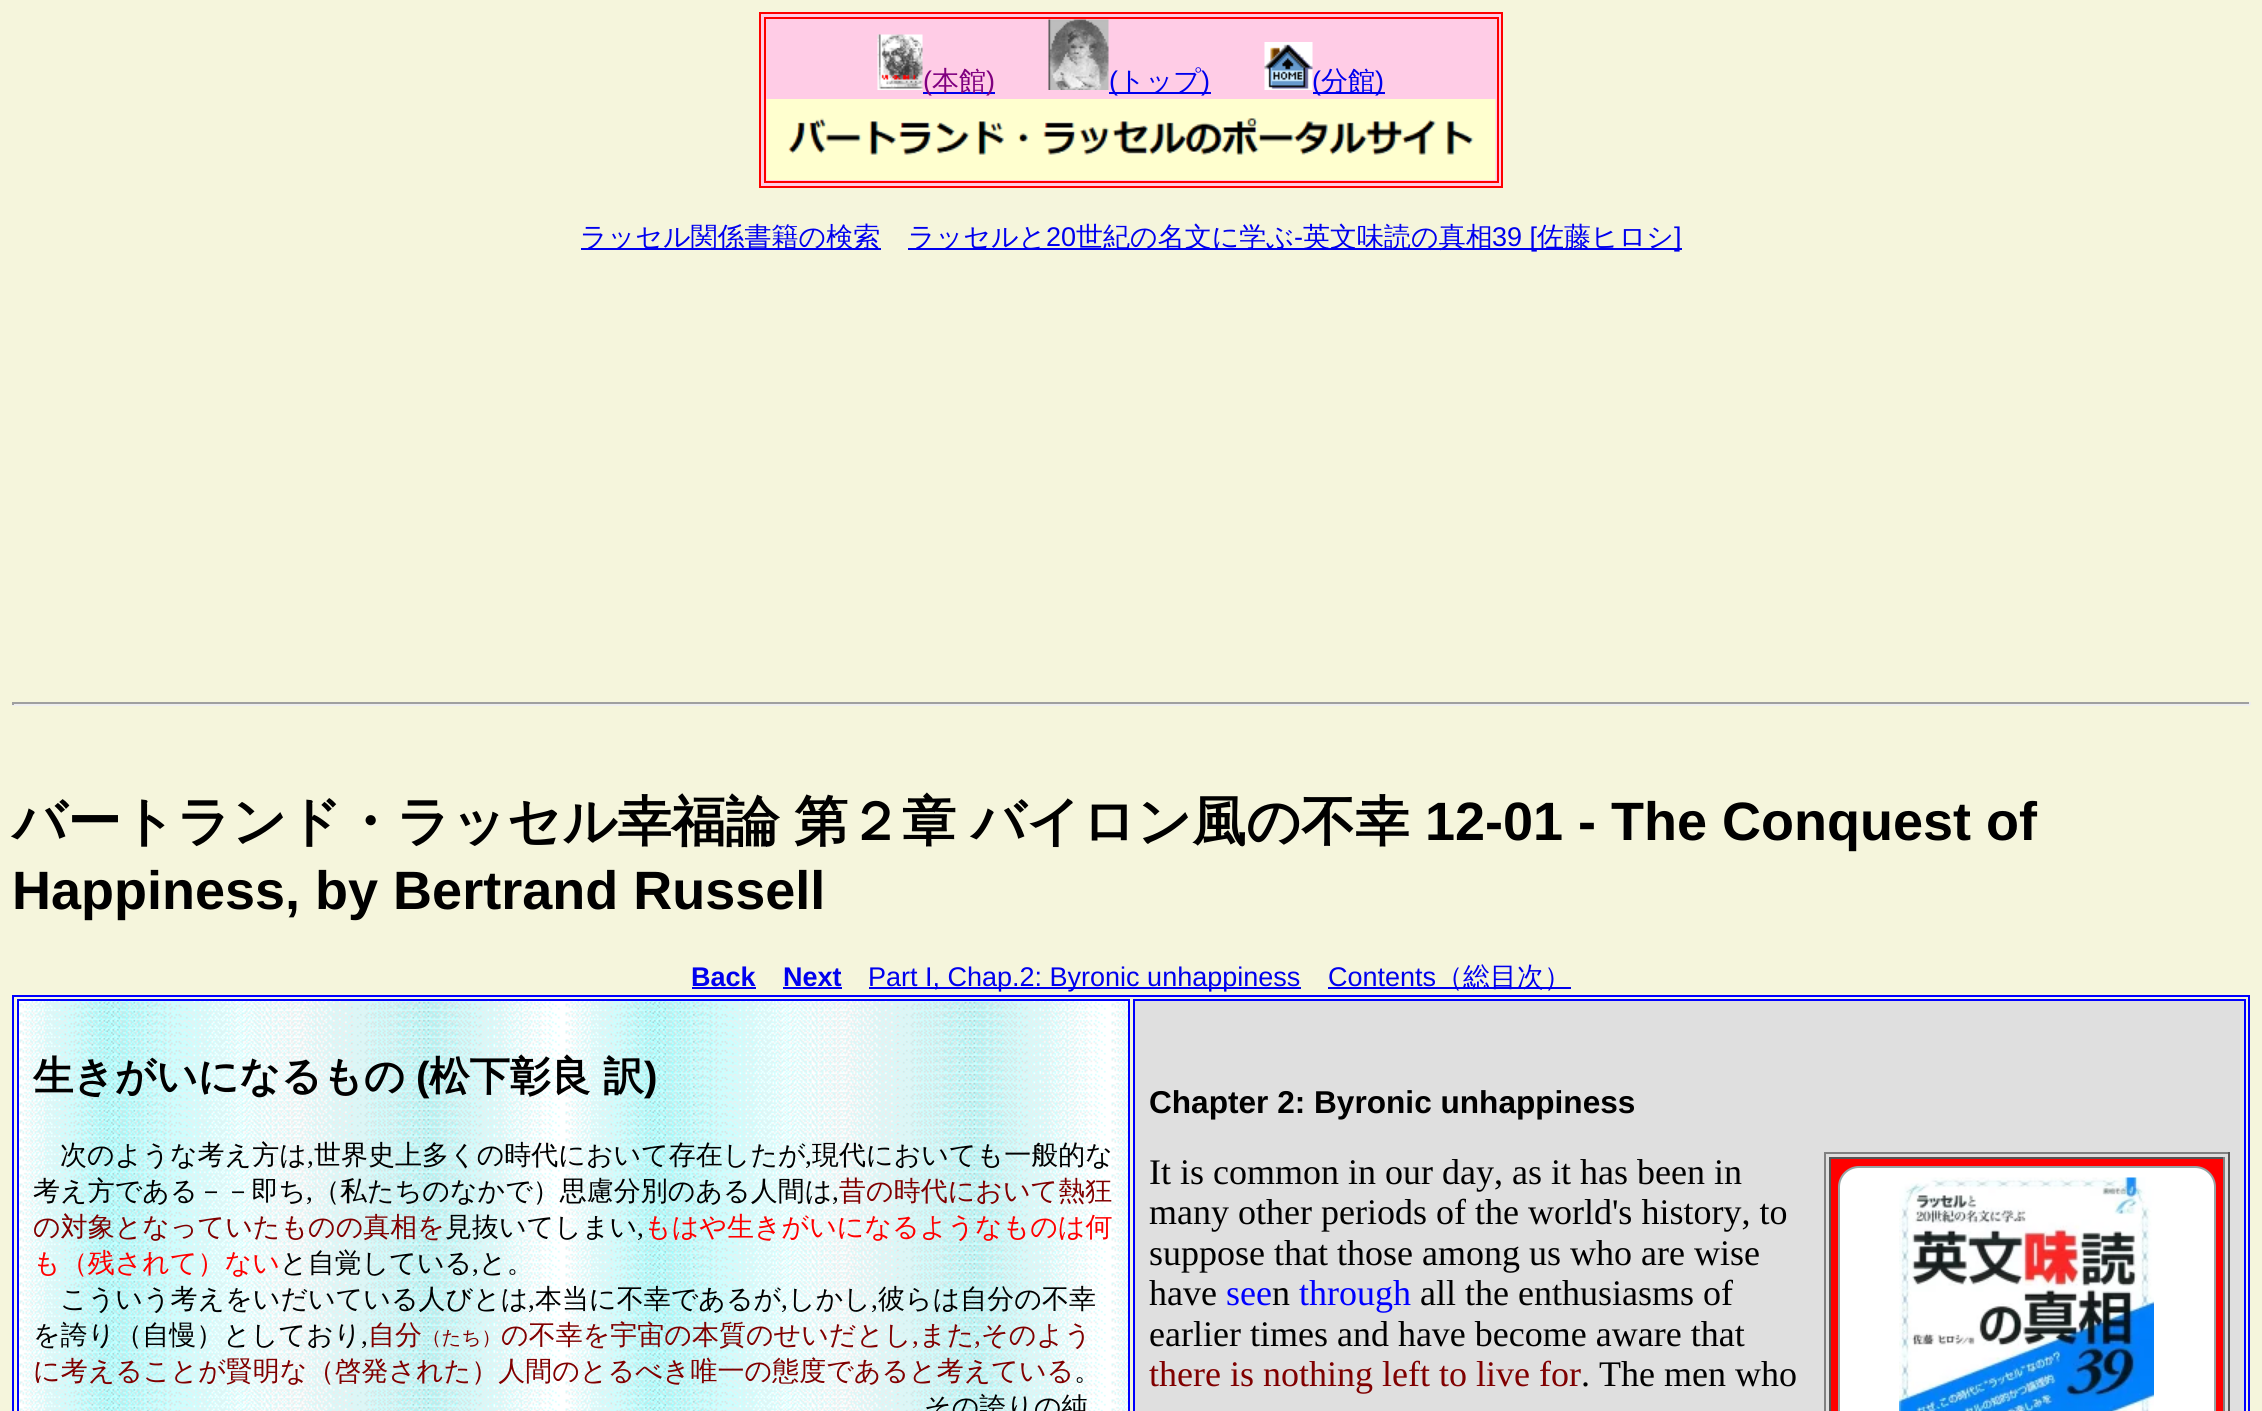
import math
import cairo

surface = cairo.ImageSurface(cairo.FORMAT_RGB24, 2262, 1411)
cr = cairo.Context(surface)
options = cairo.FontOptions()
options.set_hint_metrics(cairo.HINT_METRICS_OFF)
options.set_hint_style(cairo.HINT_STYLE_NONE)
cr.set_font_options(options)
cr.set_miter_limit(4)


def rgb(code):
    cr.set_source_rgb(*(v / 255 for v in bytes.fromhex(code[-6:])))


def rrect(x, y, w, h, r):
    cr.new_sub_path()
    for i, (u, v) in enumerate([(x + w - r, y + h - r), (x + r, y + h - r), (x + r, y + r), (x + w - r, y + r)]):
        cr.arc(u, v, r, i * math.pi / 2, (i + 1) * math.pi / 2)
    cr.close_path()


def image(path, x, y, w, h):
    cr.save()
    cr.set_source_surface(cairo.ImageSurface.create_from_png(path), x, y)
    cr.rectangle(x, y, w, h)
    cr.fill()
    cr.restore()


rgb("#f5f5dc")
cr.paint()
rgb("#ffcce6")
cr.rectangle(760, 13, 742, 174)
cr.fill_preserve()
rgb("#ff0000")
cr.stroke()
cr.rectangle(765, 18, 733, 164)
cr.stroke()
image("img/1.png", 877, 34, 46, 56)
rgb("#0000ee")
cr.rectangle(923, 92, 72, 2)
cr.fill()
image("img/2.png", 1048, 19, 61, 71)
cr.rectangle(1109, 92, 102, 2)
cr.fill()
image("img/3.png", 1264, 42, 49, 48)
cr.rectangle(1313, 92, 72, 2)
cr.fill()
image("img/4.png", 766, 99, 730, 81)
for x, y, w, h, color in [
    (581, 248, 300, 2, "#0000ee"),
    (908, 248, 774, 2, "#0000ee"),
    (12, 702, 2238, 2, "#9f9f9f"),
    (2249, 702, 2, 3, "#eeeeee"),
    (12, 704, 2238, 2, "#eeeeee"),
    (12, 702, 2, 3, "#9f9f9f"),
    (692, 987, 64, 2, "#0000ee"),
    (783, 987, 59, 2, "#0000ee"),
    (869, 987, 432, 2, "#0000ee"),
    (1328, 987, 243, 2, "#0000ee"),
]:
    rgb(color)
    cr.rectangle(x, y, w, h)
    cr.fill()
cr.rectangle(13, 996, 2236, 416)
rgb("#0000ff")
cr.stroke()
image("img/5.png", 16, 999, 1112, 412)
cr.rectangle(18, 1000, 1111, 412)
cr.stroke()
rgb("#dfdfdf")
cr.rectangle(1134, 1000, 1111, 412)
cr.fill_preserve()
rgb("#0000ff")
cr.stroke()
for x, y, w, h, color in [
    (1824, 1152, 405, 2, "#808080"),
    (2228, 1152, 2, 259, "#555555"),
    (1824, 1152, 2, 259, "#808080"),
    (1831, 1159, 392, 252, "#ff0000"),
    (1829, 1157, 396, 2, "#555555"),
    (2223, 1157, 2, 254, "#808080"),
    (1829, 1157, 2, 254, "#555555"),
]:
    rgb(color)
    cr.rectangle(x, y, w, h)
    cr.fill()
rgb("#ffffff")
rrect(1839, 1167, 376, 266, 20)
cr.fill_preserve()
rgb("#95a5a6")
cr.stroke()
image("img/6.png", 1899, 1177, 255, 234)
cr.select_font_face("Liberation Sans")
cr.set_font_size(27)
rgb("#800080")
cr.move_to(923, 90)
cr.show_text("(")
cr.select_font_face("WenQuanYi Zen Hei Medium")
cr.move_to(932, 90)
cr.show_text("本館")
cr.select_font_face("Liberation Sans")
cr.move_to(986, 90)
cr.show_text(")")
rgb("#0000ee")
cr.move_to(1109, 90)
cr.show_text("(")
cr.select_font_face("WenQuanYi Zen Hei Medium")
cr.move_to(1118, 90)
cr.show_text("トップ")
cr.select_font_face("Liberation Sans")
cr.move_to(1201, 90)
cr.show_text(")")
cr.move_to(1312, 90)
cr.show_text("(")
cr.select_font_face("WenQuanYi Zen Hei Medium")
cr.move_to(1321, 90)
cr.show_text("分館")
cr.select_font_face("Liberation Sans")
cr.move_to(1375, 90)
cr.show_text(")")
cr.select_font_face("WenQuanYi Zen Hei Medium")
cr.move_to(580, 246)
cr.show_text("ラッセル関係書籍の検索")
cr.move_to(908, 246)
cr.show_text("ラッセルと")
cr.select_font_face("Liberation Sans")
cr.move_to(1046, 246)
cr.show_text("20")
cr.select_font_face("WenQuanYi Zen Hei Medium")
cr.move_to(1076, 246)
cr.show_text("世紀の名文に学ぶ")
cr.select_font_face("Liberation Sans")
cr.move_to(1294, 246)
cr.show_text("-")
cr.select_font_face("WenQuanYi Zen Hei Medium")
cr.move_to(1303, 246)
cr.show_text("英文味読の真相")
cr.select_font_face("Liberation Sans")
cr.move_to(1492, 246)
cr.show_text("39 [")
cr.select_font_face("WenQuanYi Zen Hei Medium")
cr.move_to(1537, 246)
cr.show_text("佐藤ヒロシ")
cr.select_font_face("Liberation Sans")
cr.move_to(1674, 246)
cr.show_text("]")
cr.select_font_face("WenQuanYi Zen Hei", cairo.FONT_SLANT_NORMAL, cairo.FONT_WEIGHT_BOLD)
cr.set_font_size(54)
rgb("#000000")
for x, y, s in [
    (12, 840, "バートランド・ラッセル幸福論"),
    (794, 840, "第２章"),
    (971, 840, "バイロン風の不幸"),
]:
    cr.move_to(x, y)
    cr.show_text(s)
cr.select_font_face("Liberation Sans", cairo.FONT_SLANT_NORMAL, cairo.FONT_WEIGHT_BOLD)
cr.move_to(1425, 840)
cr.show_text("12-01 - The Conquest of")
cr.move_to(12, 909)
cr.show_text("Happiness, by Bertrand Russell")
cr.set_font_size(27)
rgb("#0000ee")
cr.move_to(691, 986)
cr.show_text("Back")
cr.move_to(783, 986)
cr.show_text("Next")
cr.select_font_face("Liberation Sans")
cr.move_to(868, 986)
cr.show_text("Part I, Chap.2: Byronic unhappiness")
cr.move_to(1328, 986)
cr.show_text("Contents")
cr.select_font_face("WenQuanYi Zen Hei Medium")
cr.move_to(1436, 986)
cr.show_text("（総目次）")
cr.select_font_face("WenQuanYi Zen Hei", cairo.FONT_SLANT_NORMAL, cairo.FONT_WEIGHT_BOLD)
cr.set_font_size(40.5)
rgb("#000000")
cr.move_to(33, 1090)
cr.show_text("生きがいになるもの")
cr.select_font_face("Liberation Sans", cairo.FONT_SLANT_NORMAL, cairo.FONT_WEIGHT_BOLD)
cr.move_to(416, 1090)
cr.show_text("(")
cr.select_font_face("WenQuanYi Zen Hei", cairo.FONT_SLANT_NORMAL, cairo.FONT_WEIGHT_BOLD)
cr.move_to(429, 1090)
cr.show_text("松下彰良 訳")
cr.select_font_face("Liberation Sans", cairo.FONT_SLANT_NORMAL, cairo.FONT_WEIGHT_BOLD)
cr.move_to(644, 1090)
cr.show_text(")")
cr.select_font_face("WenQuanYi Zen Hei Medium")
cr.set_font_size(27)
cr.move_to(60, 1164)
cr.show_text("次のような考え方は")
cr.select_font_face("Liberation Serif")
cr.move_to(307, 1164)
cr.show_text(",")
cr.select_font_face("WenQuanYi Zen Hei Medium")
cr.move_to(314, 1164)
cr.show_text("世界史上多くの時代において存在したが")
cr.select_font_face("Liberation Serif")
cr.move_to(805, 1164)
cr.show_text(",")
cr.select_font_face("WenQuanYi Zen Hei Medium")
cr.move_to(812, 1164)
cr.show_text("現代においても一般的な")
cr.move_to(33, 1200)
cr.show_text("考え方である－－即ち")
cr.select_font_face("Liberation Serif")
cr.move_to(306, 1200)
cr.show_text(",")
cr.select_font_face("WenQuanYi Zen Hei Medium")
cr.move_to(313, 1200)
cr.show_text("（私たちのなかで）思慮分別のある人間は")
cr.select_font_face("Liberation Serif")
cr.move_to(832, 1200)
cr.show_text(",")
cr.select_font_face("WenQuanYi Zen Hei Medium")
rgb("#800000")
cr.move_to(839, 1200)
cr.show_text("昔の時代において熱狂")
cr.move_to(33, 1236)
cr.show_text("の対象となっていたものの真相を")
rgb("#000000")
cr.move_to(445, 1236)
cr.show_text("見抜いてしまい")
cr.select_font_face("Liberation Serif")
cr.move_to(637, 1236)
cr.show_text(",")
cr.select_font_face("WenQuanYi Zen Hei Medium")
rgb("#ff0000")
cr.move_to(644, 1236)
cr.show_text("もはや生きがいになるようなものは何")
cr.move_to(33, 1272)
cr.show_text("も（残されて）ない")
rgb("#000000")
cr.move_to(280, 1272)
cr.show_text("と自覚している")
cr.select_font_face("Liberation Serif")
cr.move_to(472, 1272)
cr.show_text(",")
cr.select_font_face("WenQuanYi Zen Hei Medium")
cr.move_to(479, 1272)
cr.show_text("と。")
cr.move_to(60, 1308)
cr.show_text("こういう考えをいだいている人びとは")
cr.select_font_face("Liberation Serif")
cr.move_to(528, 1308)
cr.show_text(",")
cr.select_font_face("WenQuanYi Zen Hei Medium")
cr.move_to(535, 1308)
cr.show_text("本当に不幸であるが")
cr.select_font_face("Liberation Serif")
cr.move_to(781, 1308)
cr.show_text(",")
cr.select_font_face("WenQuanYi Zen Hei Medium")
cr.move_to(788, 1308)
cr.show_text("しかし")
cr.select_font_face("Liberation Serif")
cr.move_to(871, 1308)
cr.show_text(",")
cr.select_font_face("WenQuanYi Zen Hei Medium")
cr.move_to(878, 1308)
cr.show_text("彼らは自分の不幸")
cr.move_to(33, 1344)
cr.show_text("を誇り（自慢）としており")
cr.select_font_face("Liberation Serif")
cr.move_to(361, 1344)
cr.show_text(",")
cr.select_font_face("WenQuanYi Zen Hei Medium")
rgb("#800000")
cr.move_to(368, 1344)
cr.show_text("自分")
cr.set_font_size(19.5)
cr.move_to(422, 1344)
cr.show_text("（たち）")
cr.set_font_size(27)
cr.move_to(501, 1344)
cr.show_text("の不幸を宇宙の本質のせいだとし")
cr.select_font_face("Liberation Serif")
cr.move_to(912, 1344)
cr.show_text(",")
cr.select_font_face("WenQuanYi Zen Hei Medium")
cr.move_to(919, 1344)
cr.show_text("また")
cr.select_font_face("Liberation Serif")
cr.move_to(974, 1344)
cr.show_text(",")
cr.select_font_face("WenQuanYi Zen Hei Medium")
cr.move_to(981, 1344)
cr.show_text("そのよう")
cr.move_to(33, 1380)
cr.show_text("に考えることが賢明な（啓発された）人間のとるべき唯一の態度であると考えている")
rgb("#000000")
cr.move_to(1074, 1380)
cr.show_text("。")
cr.move_to(924, 1416)
cr.show_text("その誇りの純")
cr.select_font_face("Liberation Sans", cairo.FONT_SLANT_NORMAL, cairo.FONT_WEIGHT_BOLD)
cr.set_font_size(31.6)
cr.move_to(1149, 1113)
cr.show_text("Chapter 2: Byronic unhappiness")
cr.select_font_face("Liberation Serif")
cr.set_font_size(36)
for x, y, s in [
    (1149, 1184, "It is common in our day, as it has been in"),
    (1149, 1224, "many other periods of the world's history, to"),
    (1149, 1265, "suppose that those among us who are wise"),
    (1149, 1305, "have"),
]:
    cr.move_to(x, y)
    cr.show_text(s)
rgb("#0000ff")
cr.move_to(1226, 1305)
cr.show_text("see")
rgb("#000000")
cr.move_to(1272, 1305)
cr.show_text("n")
rgb("#0000ff")
cr.move_to(1299, 1305)
cr.show_text("through")
rgb("#000000")
cr.move_to(1420, 1305)
cr.show_text("all the enthusiasms of")
cr.move_to(1149, 1346)
cr.show_text("earlier times and have become aware that")
rgb("#800000")
cr.move_to(1149, 1386)
cr.show_text("there is nothing left to live for")
rgb("#000000")
cr.move_to(1581, 1386)
cr.show_text(". The men who")
surface.write_to_png("page.png")
